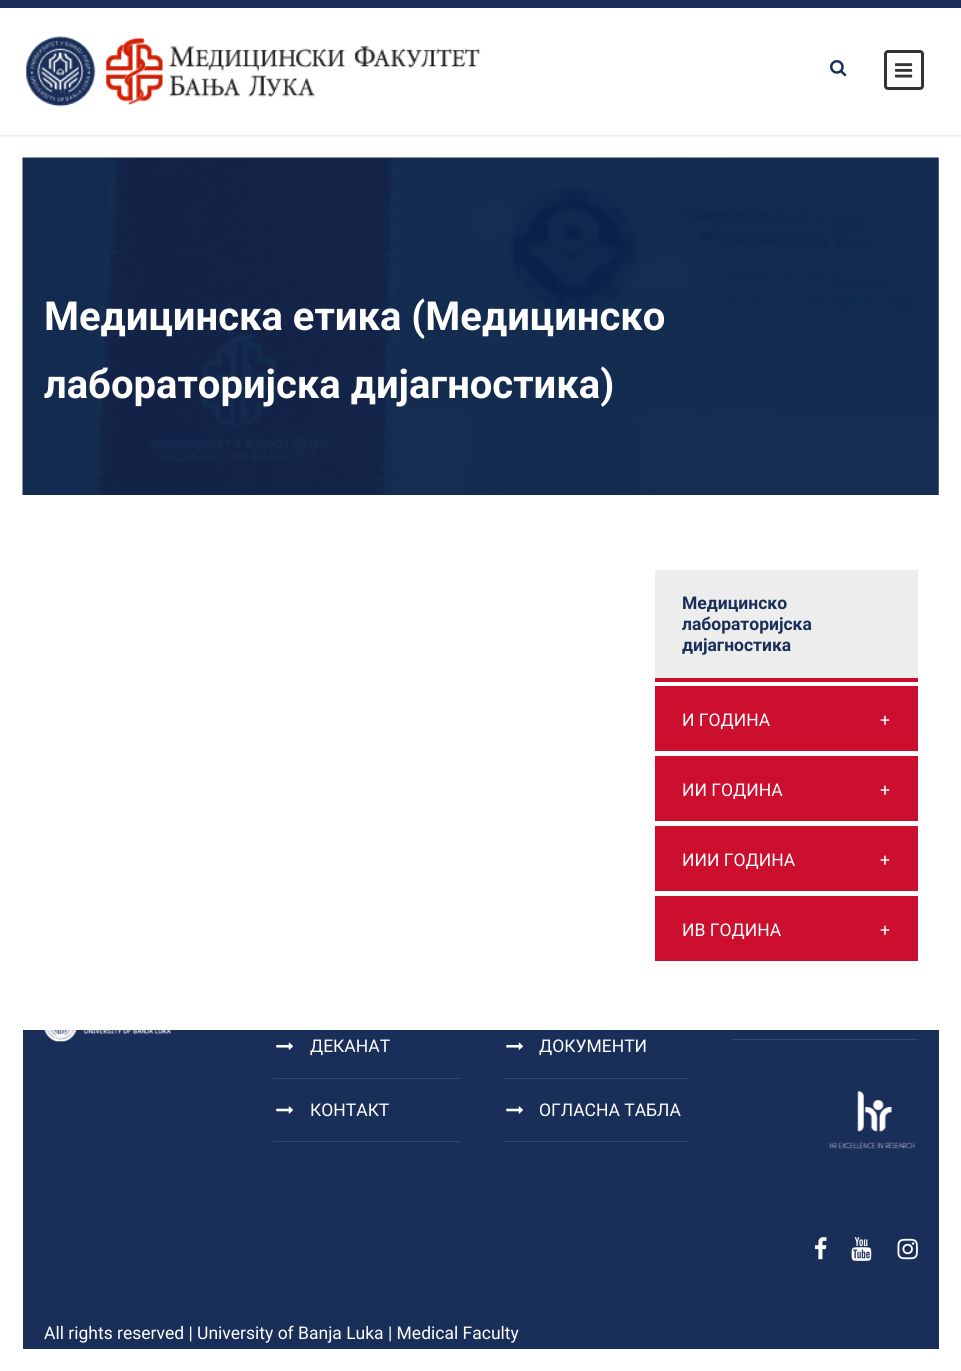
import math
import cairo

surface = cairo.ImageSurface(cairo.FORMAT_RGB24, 961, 1371)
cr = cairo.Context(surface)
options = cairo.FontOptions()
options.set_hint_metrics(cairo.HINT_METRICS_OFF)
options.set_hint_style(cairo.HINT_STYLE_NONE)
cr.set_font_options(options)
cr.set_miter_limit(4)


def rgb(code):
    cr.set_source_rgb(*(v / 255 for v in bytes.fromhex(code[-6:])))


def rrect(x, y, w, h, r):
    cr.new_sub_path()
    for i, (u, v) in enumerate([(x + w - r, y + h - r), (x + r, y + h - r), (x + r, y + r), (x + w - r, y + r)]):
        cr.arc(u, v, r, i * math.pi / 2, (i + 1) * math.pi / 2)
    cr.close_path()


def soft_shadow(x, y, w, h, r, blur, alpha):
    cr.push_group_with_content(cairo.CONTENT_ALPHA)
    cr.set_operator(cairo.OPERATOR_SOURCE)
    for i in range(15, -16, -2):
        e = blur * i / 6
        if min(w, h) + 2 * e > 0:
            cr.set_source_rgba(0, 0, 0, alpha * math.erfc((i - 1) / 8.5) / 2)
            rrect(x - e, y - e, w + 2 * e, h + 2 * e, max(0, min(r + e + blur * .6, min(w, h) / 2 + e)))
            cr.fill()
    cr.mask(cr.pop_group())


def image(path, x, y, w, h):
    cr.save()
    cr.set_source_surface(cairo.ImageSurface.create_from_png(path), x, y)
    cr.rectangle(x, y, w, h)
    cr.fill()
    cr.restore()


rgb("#ffffff")
cr.paint()
rgb("#192f59")
cr.rectangle(0, 0, 961, 8)
cr.fill()
cr.save()
cr.rectangle(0, 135, 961, 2)
cr.clip()
rgb("#000000")
soft_shadow(0, 9, 961, 127, 0, 1, 0.1)
cr.restore()
image("img/1.png", 26, 36, 455, 71)
image("img/2.png", 830, 60, 17, 17)
rrect(885.5, 51.5, 37, 37, 2.5)
rgb("#333333")
cr.set_line_width(3)
cr.stroke()
image("img/3.png", 895, 63, 18, 15)
image("img/4.png", 22, 157, 917, 338)
for x, y, w, h, color in [
    (655, 570, 263, 108, "#ededed"),
    (655, 678, 263, 4, "#cc0f2f"),
    (655, 686, 263, 65, "#cc0f2f"),
    (655, 756, 263, 65, "#cc0f2f"),
    (655, 826, 263, 65, "#cc0f2f"),
    (655, 896, 263, 65, "#cc0f2f"),
    (23, 1030, 916, 319, "#192f59"),
]:
    rgb(color)
    cr.rectangle(x, y, w, h)
    cr.fill()
image("img/5.png", 44, 1030, 128, 12)
rgb("#33466b")
cr.rectangle(273, 1078, 187, 1)
cr.fill()
image("img/6.png", 276, 1042, 18, 8)
cr.rectangle(273, 1141, 187, 1)
cr.fill()
image("img/7.png", 276, 1106, 17, 8)
cr.rectangle(503, 1078, 186, 1)
cr.fill()
image("img/6.png", 506, 1042, 18, 8)
cr.rectangle(503, 1141, 186, 1)
cr.fill()
image("img/7.png", 506, 1106, 17, 8)
cr.rectangle(731, 1039, 187, 1)
cr.fill()
image("img/8.png", 829, 1091, 86, 58)
image("img/9.png", 815, 1237, 12, 23)
image("img/10.png", 851, 1237, 21, 24)
image("img/11.png", 897, 1238, 21, 22)
cr.select_font_face("Roboto", cairo.FONT_SLANT_NORMAL, cairo.FONT_WEIGHT_BOLD)
cr.set_font_size(40)
rgb("#ffffff")
cr.move_to(44, 330)
cr.show_text("Медицинска етика (Медицинско")
cr.move_to(44, 398)
cr.show_text("лабораторијска дијагностика)")
cr.set_font_size(17.5)
rgb("#192f59")
for x, y, s in [
    (682, 609, "Медицинско"),
    (682, 630, "лабораторијска"),
    (682, 651, "дијагностика"),
]:
    cr.move_to(x, y)
    cr.show_text(s)
cr.select_font_face("Roboto")
rgb("#ffffff")
for x, y, s in [
    (682, 726, "И ГОДИНА"),
    (880, 726, "+"),
    (682, 796, "ИИ ГОДИНА"),
    (880, 796, "+"),
    (682, 866, "ИИИ ГОДИНА"),
    (880, 866, "+"),
    (682, 936, "ИВ ГОДИНА"),
    (880, 936, "+"),
    (310, 1052, "ДЕКАНАТ"),
    (310, 1116, "КОНТАКТ"),
    (539, 1052, "ДОКУМЕНТИ"),
    (539, 1116, "ОГЛАСНА ТАБЛА"),
    (44, 1339, "All rights reserved | University of Banja Luka | Medical Faculty"),
]:
    cr.move_to(x, y)
    cr.show_text(s)
surface.write_to_png("page.png")
